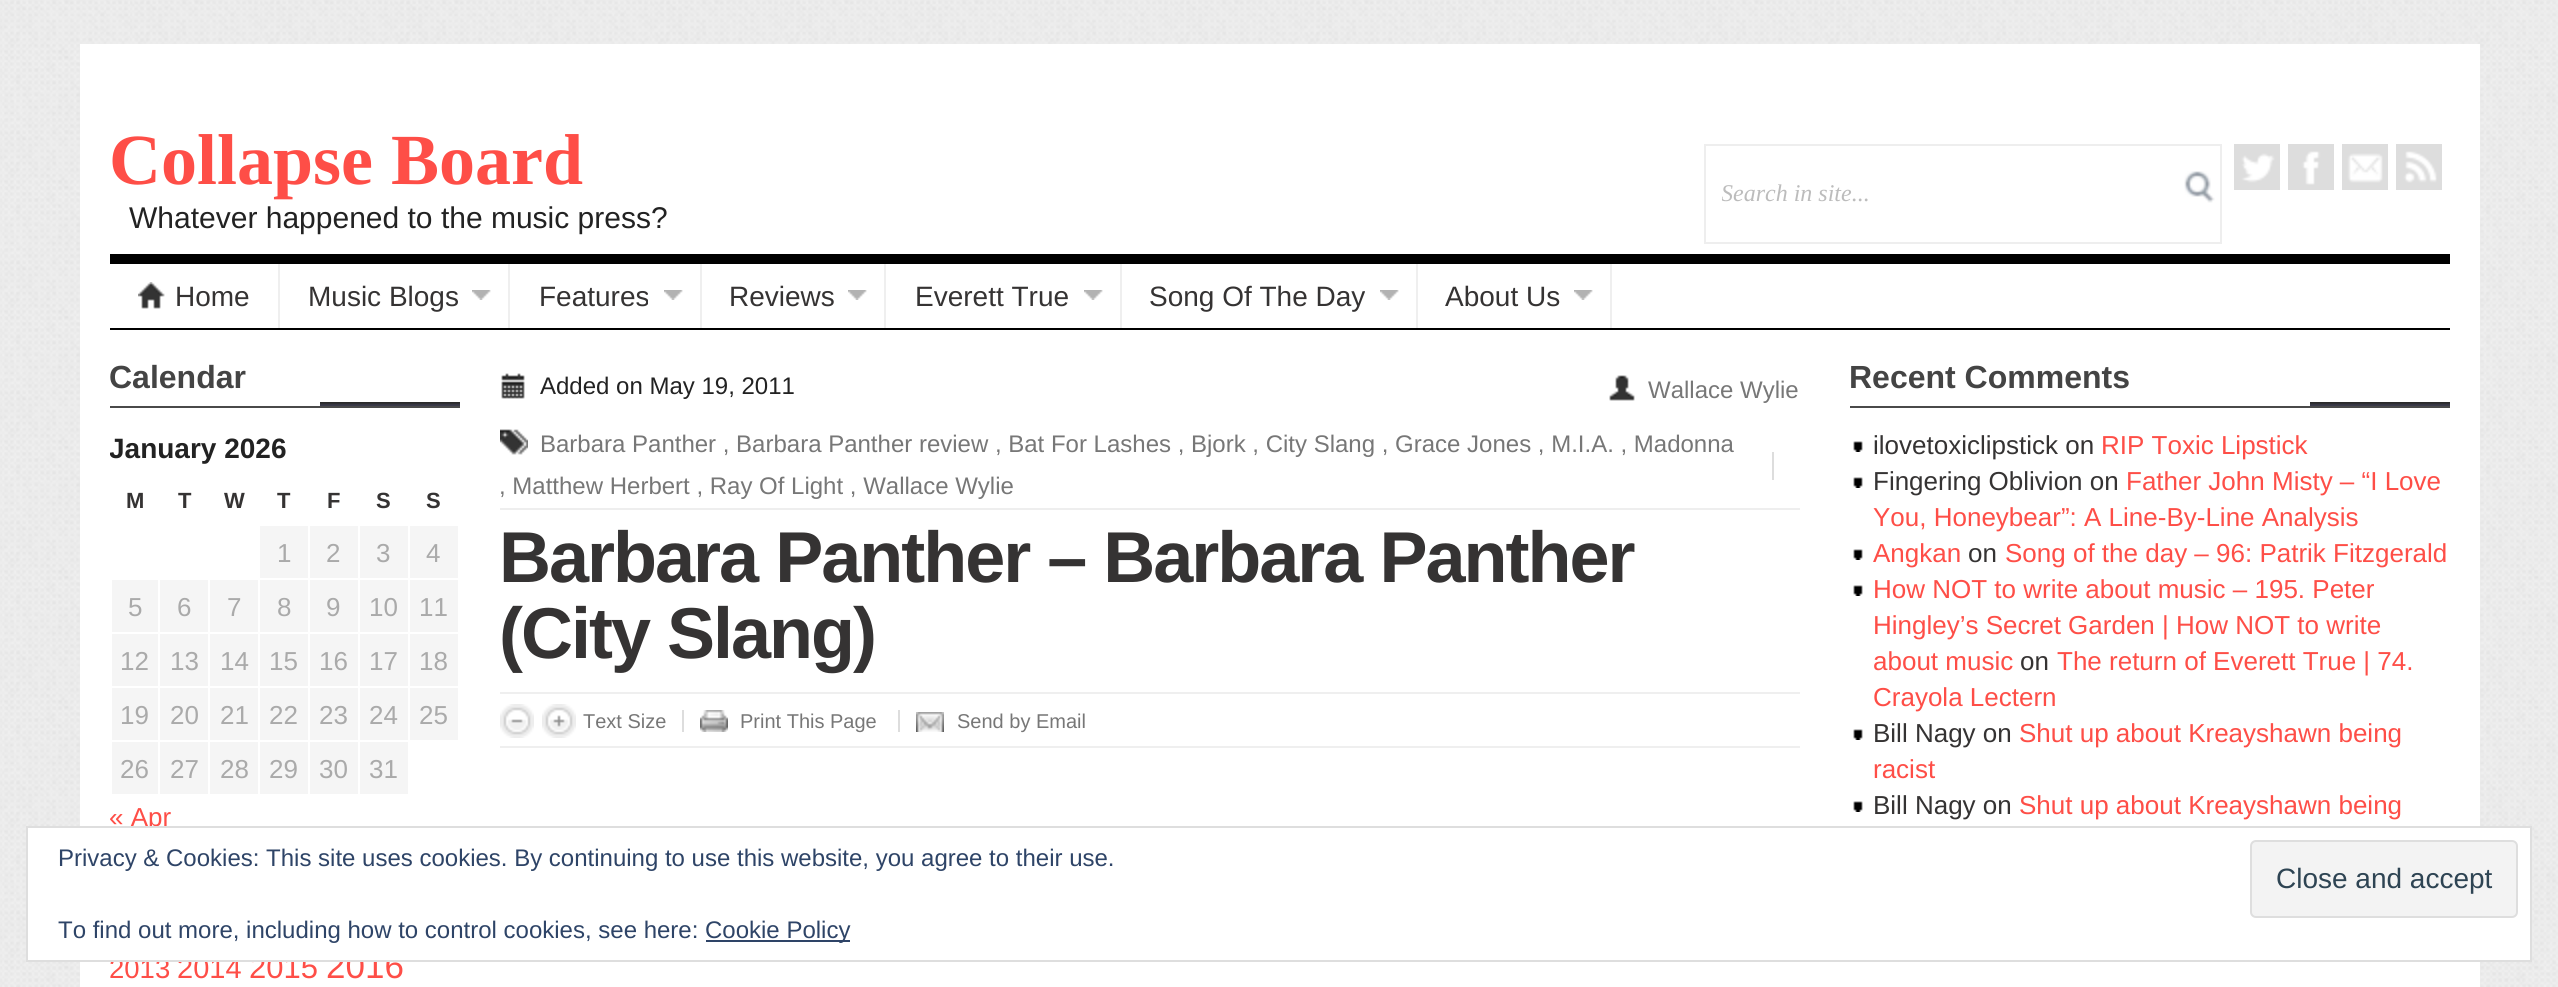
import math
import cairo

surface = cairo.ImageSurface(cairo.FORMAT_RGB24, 2558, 987)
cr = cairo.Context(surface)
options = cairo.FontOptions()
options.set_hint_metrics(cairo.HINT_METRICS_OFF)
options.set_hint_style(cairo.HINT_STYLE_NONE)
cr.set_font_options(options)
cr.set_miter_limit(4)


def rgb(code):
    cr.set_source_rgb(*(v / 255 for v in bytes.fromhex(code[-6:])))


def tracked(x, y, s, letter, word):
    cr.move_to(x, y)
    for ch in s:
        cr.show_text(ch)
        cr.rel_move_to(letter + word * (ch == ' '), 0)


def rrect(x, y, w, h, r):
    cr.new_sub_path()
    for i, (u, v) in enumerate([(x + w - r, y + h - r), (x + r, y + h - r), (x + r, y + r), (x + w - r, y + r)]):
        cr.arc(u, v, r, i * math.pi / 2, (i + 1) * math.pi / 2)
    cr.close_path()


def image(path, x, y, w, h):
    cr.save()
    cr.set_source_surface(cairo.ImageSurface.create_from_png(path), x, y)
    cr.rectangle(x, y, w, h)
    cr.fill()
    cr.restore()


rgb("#ffffff")
cr.paint()
image("img/1.png", 0, 0, 2558, 987)
rgb("#ffffff")
cr.rectangle(80, 44, 2400, 943)
cr.fill()
rgb("#000000")
cr.rectangle(110, 254, 2340, 10)
cr.fill()
image("img/2.png", 2234, 144, 46, 46)
image("img/3.png", 2288, 144, 46, 46)
image("img/4.png", 2342, 144, 46, 46)
image("img/5.png", 2396, 144, 46, 46)
cr.rectangle(1705, 145, 516, 98)
rgb("#eeeeee")
cr.stroke()
image("img/6.png", 2184, 171, 31, 32)
rgb("#000000")
cr.rectangle(110, 328, 2340, 2)
cr.fill()
rgb("#efefef")
cr.rectangle(278, 264, 2, 64)
cr.fill()
image("img/7.png", 138, 282, 27, 27)
image("img/8.png", 472, 290, 19, 10)
cr.rectangle(508, 264, 2, 64)
cr.fill()
image("img/8.png", 664, 290, 19, 10)
cr.rectangle(700, 264, 2, 64)
cr.fill()
image("img/8.png", 848, 290, 19, 10)
cr.rectangle(884, 264, 2, 64)
cr.fill()
image("img/8.png", 1084, 290, 19, 10)
cr.rectangle(1120, 264, 2, 64)
cr.fill()
image("img/8.png", 1380, 290, 19, 10)
cr.rectangle(1416, 264, 2, 64)
cr.fill()
image("img/8.png", 1574, 290, 19, 10)
cr.rectangle(1610, 264, 2, 64)
cr.fill()
image("img/9.png", 320, 402, 140, 4)
for x, y, w, h, color in [
    (110, 406, 350, 2, "#4a4a4a"),
    (260, 526, 48, 52, "#f5f5f5"),
    (310, 526, 48, 52, "#f5f5f5"),
    (360, 526, 48, 52, "#f5f5f5"),
    (410, 526, 48, 52, "#f5f5f5"),
    (112, 580, 46, 52, "#f5f5f5"),
    (160, 580, 48, 52, "#f5f5f5"),
    (210, 580, 48, 52, "#f5f5f5"),
    (260, 580, 48, 52, "#f5f5f5"),
    (310, 580, 48, 52, "#f5f5f5"),
    (360, 580, 48, 52, "#f5f5f5"),
    (410, 580, 48, 52, "#f5f5f5"),
    (112, 634, 46, 52, "#f5f5f5"),
    (160, 634, 48, 52, "#f5f5f5"),
    (210, 634, 48, 52, "#f5f5f5"),
    (260, 634, 48, 52, "#f5f5f5"),
    (310, 634, 48, 52, "#f5f5f5"),
    (360, 634, 48, 52, "#f5f5f5"),
    (410, 634, 48, 52, "#f5f5f5"),
    (112, 688, 46, 52, "#f5f5f5"),
    (160, 688, 48, 52, "#f5f5f5"),
    (210, 688, 48, 52, "#f5f5f5"),
    (260, 688, 48, 52, "#f5f5f5"),
    (310, 688, 48, 52, "#f5f5f5"),
    (360, 688, 48, 52, "#f5f5f5"),
    (410, 688, 48, 52, "#f5f5f5"),
    (112, 742, 46, 52, "#f5f5f5"),
    (160, 742, 48, 52, "#f5f5f5"),
    (210, 742, 48, 52, "#f5f5f5"),
    (260, 742, 48, 52, "#f5f5f5"),
    (310, 742, 48, 52, "#f5f5f5"),
    (360, 742, 48, 52, "#f5f5f5"),
    (500, 508, 1300, 2, "#eeeeee"),
]:
    rgb(color)
    cr.rectangle(x, y, w, h)
    cr.fill()
image("img/10.png", 501, 373, 24, 26)
image("img/11.png", 1609, 375, 26, 26)
rgb("#dddddd")
cr.rectangle(1772, 452, 2, 28)
cr.fill()
image("img/12.png", 500, 429, 28, 26)
rgb("#efefef")
cr.rectangle(500, 692, 1300, 2)
cr.fill()
cr.rectangle(500, 746, 1300, 2)
cr.fill()
image("img/13.png", 500, 704, 34, 34)
image("img/14.png", 542, 704, 34, 34)
image("img/15.png", 700, 710, 28, 22)
rgb("#dddddd")
cr.rectangle(682, 710, 2, 22)
cr.fill()
image("img/16.png", 916, 712, 28, 20)
cr.rectangle(898, 710, 2, 22)
cr.fill()
image("img/9.png", 2310, 402, 140, 4)
rgb("#4a4a4a")
cr.rectangle(1850, 406, 600, 2)
cr.fill()
image("img/17.png", 1853, 441, 10, 11)
image("img/17.png", 1853, 477, 10, 11)
image("img/17.png", 1853, 549, 10, 11)
image("img/17.png", 1853, 585, 10, 11)
image("img/17.png", 1853, 729, 10, 11)
image("img/17.png", 1853, 801, 10, 11)
cr.select_font_face("Liberation Serif", cairo.FONT_SLANT_NORMAL, cairo.FONT_WEIGHT_BOLD)
cr.set_font_size(72)
rgb("#fe4e47")
cr.move_to(109, 184)
cr.show_text("Collapse Board")
cr.select_font_face("Liberation Sans")
cr.set_font_size(30)
rgb("#222222")
cr.move_to(129, 228)
cr.show_text("Whatever happened to the music press?")
cr.save()
cr.rectangle(1722, 178, 460, 30)
cr.clip()
cr.select_font_face("Liberation Serif", cairo.FONT_SLANT_ITALIC)
cr.set_font_size(24)
rgb("#bcbcbc")
cr.move_to(1721, 201)
cr.show_text("Search in site...")
cr.restore()
cr.set_font_size(28)
rgb("#353333")
for x, y, s in [
    (175, 306, "Home"),
    (308, 306, "Music Blogs"),
    (539, 306, "Features"),
    (729, 306, "Reviews"),
    (915, 306, "Everett True"),
    (1149, 306, "Song Of The Day"),
    (1445, 306, "About Us"),
]:
    cr.move_to(x, y)
    cr.show_text(s)
cr.select_font_face("Liberation Sans", cairo.FONT_SLANT_NORMAL, cairo.FONT_WEIGHT_BOLD)
cr.set_font_size(32)
rgb("#444444")
cr.move_to(109, 388)
cr.show_text("Calendar")
cr.save()
cr.rectangle(110, 360, 350, 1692)
cr.clip()
cr.set_font_size(28)
rgb("#222222")
cr.move_to(109, 458)
cr.show_text("January 2026")
cr.restore()
cr.set_font_size(22)
rgb("#353333")
for x, y, s in [
    (126, 508, "M"),
    (178, 508, "T"),
    (224, 508, "W"),
    (277, 508, "T"),
    (327, 508, "F"),
    (376, 508, "S"),
    (426, 508, "S"),
]:
    cr.move_to(x, y)
    cr.show_text(s)
cr.select_font_face("Liberation Sans")
cr.set_font_size(26)
rgb("#aaaaaa")
for x, y, s in [
    (277, 562, "1"),
    (326, 562, "2"),
    (376, 562, "3"),
    (426, 562, "4"),
    (128, 616, "5"),
    (177, 616, "6"),
    (227, 616, "7"),
    (277, 616, "8"),
    (326, 616, "9"),
    (369, 616, "10"),
    (419, 616, "11"),
    (120, 670, "12"),
    (170, 670, "13"),
    (220, 670, "14"),
    (269, 670, "15"),
    (319, 670, "16"),
    (369, 670, "17"),
    (419, 670, "18"),
    (120, 724, "19"),
    (170, 724, "20"),
    (220, 724, "21"),
    (269, 724, "22"),
    (319, 724, "23"),
    (369, 724, "24"),
    (419, 724, "25"),
    (120, 778, "26"),
    (170, 778, "27"),
    (220, 778, "28"),
    (269, 778, "29"),
    (319, 778, "30"),
    (369, 778, "31"),
]:
    cr.move_to(x, y)
    cr.show_text(s)
rgb("#fe4e47")
cr.move_to(109, 826)
cr.show_text("« Apr")
cr.set_font_size(27.5)
cr.move_to(109, 978)
cr.show_text("2013")
cr.set_font_size(29)
cr.move_to(177, 978)
cr.show_text("2014")
cr.set_font_size(31)
cr.move_to(249, 978)
cr.show_text("2015")
cr.set_font_size(35)
cr.move_to(326, 978)
cr.show_text("2016")
cr.set_font_size(24)
rgb("#222222")
cr.move_to(540, 394)
cr.show_text("Added on May 19, 2011")
rgb("#777777")
for x, y, s in [
    (1648, 398, "Wallace Wylie"),
    (540, 452, "Barbara Panther , Barbara Panther review , Bat For Lashes , Bjork , City Slang , Grace Jones , M.I.A. , Madonna"),
    (499, 494, ", Matthew Herbert , Ray Of Light , Wallace Wylie"),
]:
    cr.move_to(x, y)
    cr.show_text(s)
cr.select_font_face("Liberation Sans", cairo.FONT_SLANT_NORMAL, cairo.FONT_WEIGHT_BOLD)
cr.set_font_size(72)
rgb("#353333")
tracked(499, 582, "Barbara Panther – Barbara Panther", -2, 0)
tracked(499, 658, "(City Slang)", -2, 0)
cr.select_font_face("Liberation Sans")
cr.set_font_size(20)
rgb("#777777")
for x, y, s in [
    (583, 728, "Text Size"),
    (740, 728, "Print This Page"),
    (957, 728, "Send by Email"),
]:
    cr.move_to(x, y)
    cr.show_text(s)
cr.select_font_face("Liberation Sans", cairo.FONT_SLANT_NORMAL, cairo.FONT_WEIGHT_BOLD)
cr.set_font_size(32)
rgb("#444444")
cr.move_to(1849, 388)
cr.show_text("Recent Comments")
cr.select_font_face("Liberation Sans")
cr.set_font_size(26)
rgb("#353333")
cr.move_to(1873, 454)
cr.show_text("ilovetoxiclipstick on")
rgb("#fe4e47")
cr.move_to(2101, 454)
cr.show_text("RIP Toxic Lipstick")
rgb("#353333")
cr.move_to(1873, 490)
cr.show_text("Fingering Oblivion on")
rgb("#fe4e47")
for x, y, s in [
    (2126, 490, "Father John Misty – “I Love"),
    (1873, 526, "You, Honeybear”: A Line-By-Line Analysis"),
    (1873, 562, "Angkan"),
]:
    cr.move_to(x, y)
    cr.show_text(s)
rgb("#353333")
cr.move_to(1968, 562)
cr.show_text("on")
rgb("#fe4e47")
for x, y, s in [
    (2005, 562, "Song of the day – 96: Patrik Fitzgerald"),
    (1873, 598, "How NOT to write about music – 195. Peter"),
    (1873, 634, "Hingley’s Secret Garden | How NOT to write"),
    (1873, 670, "about music"),
]:
    cr.move_to(x, y)
    cr.show_text(s)
rgb("#353333")
cr.move_to(2020, 670)
cr.show_text("on")
rgb("#fe4e47")
cr.move_to(2057, 670)
cr.show_text("The return of Everett True | 74.")
cr.move_to(1873, 706)
cr.show_text("Crayola Lectern")
rgb("#353333")
cr.move_to(1873, 742)
cr.show_text("Bill Nagy on")
rgb("#fe4e47")
cr.move_to(2019, 742)
cr.show_text("Shut up about Kreayshawn being")
cr.move_to(1873, 778)
cr.show_text("racist")
rgb("#353333")
cr.move_to(1873, 814)
cr.show_text("Bill Nagy on")
rgb("#fe4e47")
cr.move_to(2019, 814)
cr.show_text("Shut up about Kreayshawn being")
rgb("#ffffff")
cr.rectangle(27, 827, 2504, 134)
cr.fill_preserve()
rgb("#dedede")
cr.stroke()
cr.set_font_size(24)
rgb("#2e4467")
cr.move_to(58, 866)
cr.show_text("Privacy & Cookies: This site uses cookies. By continuing to use this website, you agree to their use.")
rgb("#f3f3f3")
rrect(2251, 841, 266, 76, 5)
cr.fill_preserve()
rgb("#dedede")
cr.stroke()
cr.set_font_size(28)
rgb("#2e4453")
cr.move_to(2276, 888)
cr.show_text("Close and accept")
cr.set_font_size(24)
rgb("#2e4467")
cr.move_to(58, 938)
cr.show_text("To find out more, including how to control cookies, see here:")
cr.rectangle(706, 940, 144, 2)
cr.fill()
cr.move_to(705, 938)
cr.show_text("Cookie Policy")
surface.write_to_png("page.png")
